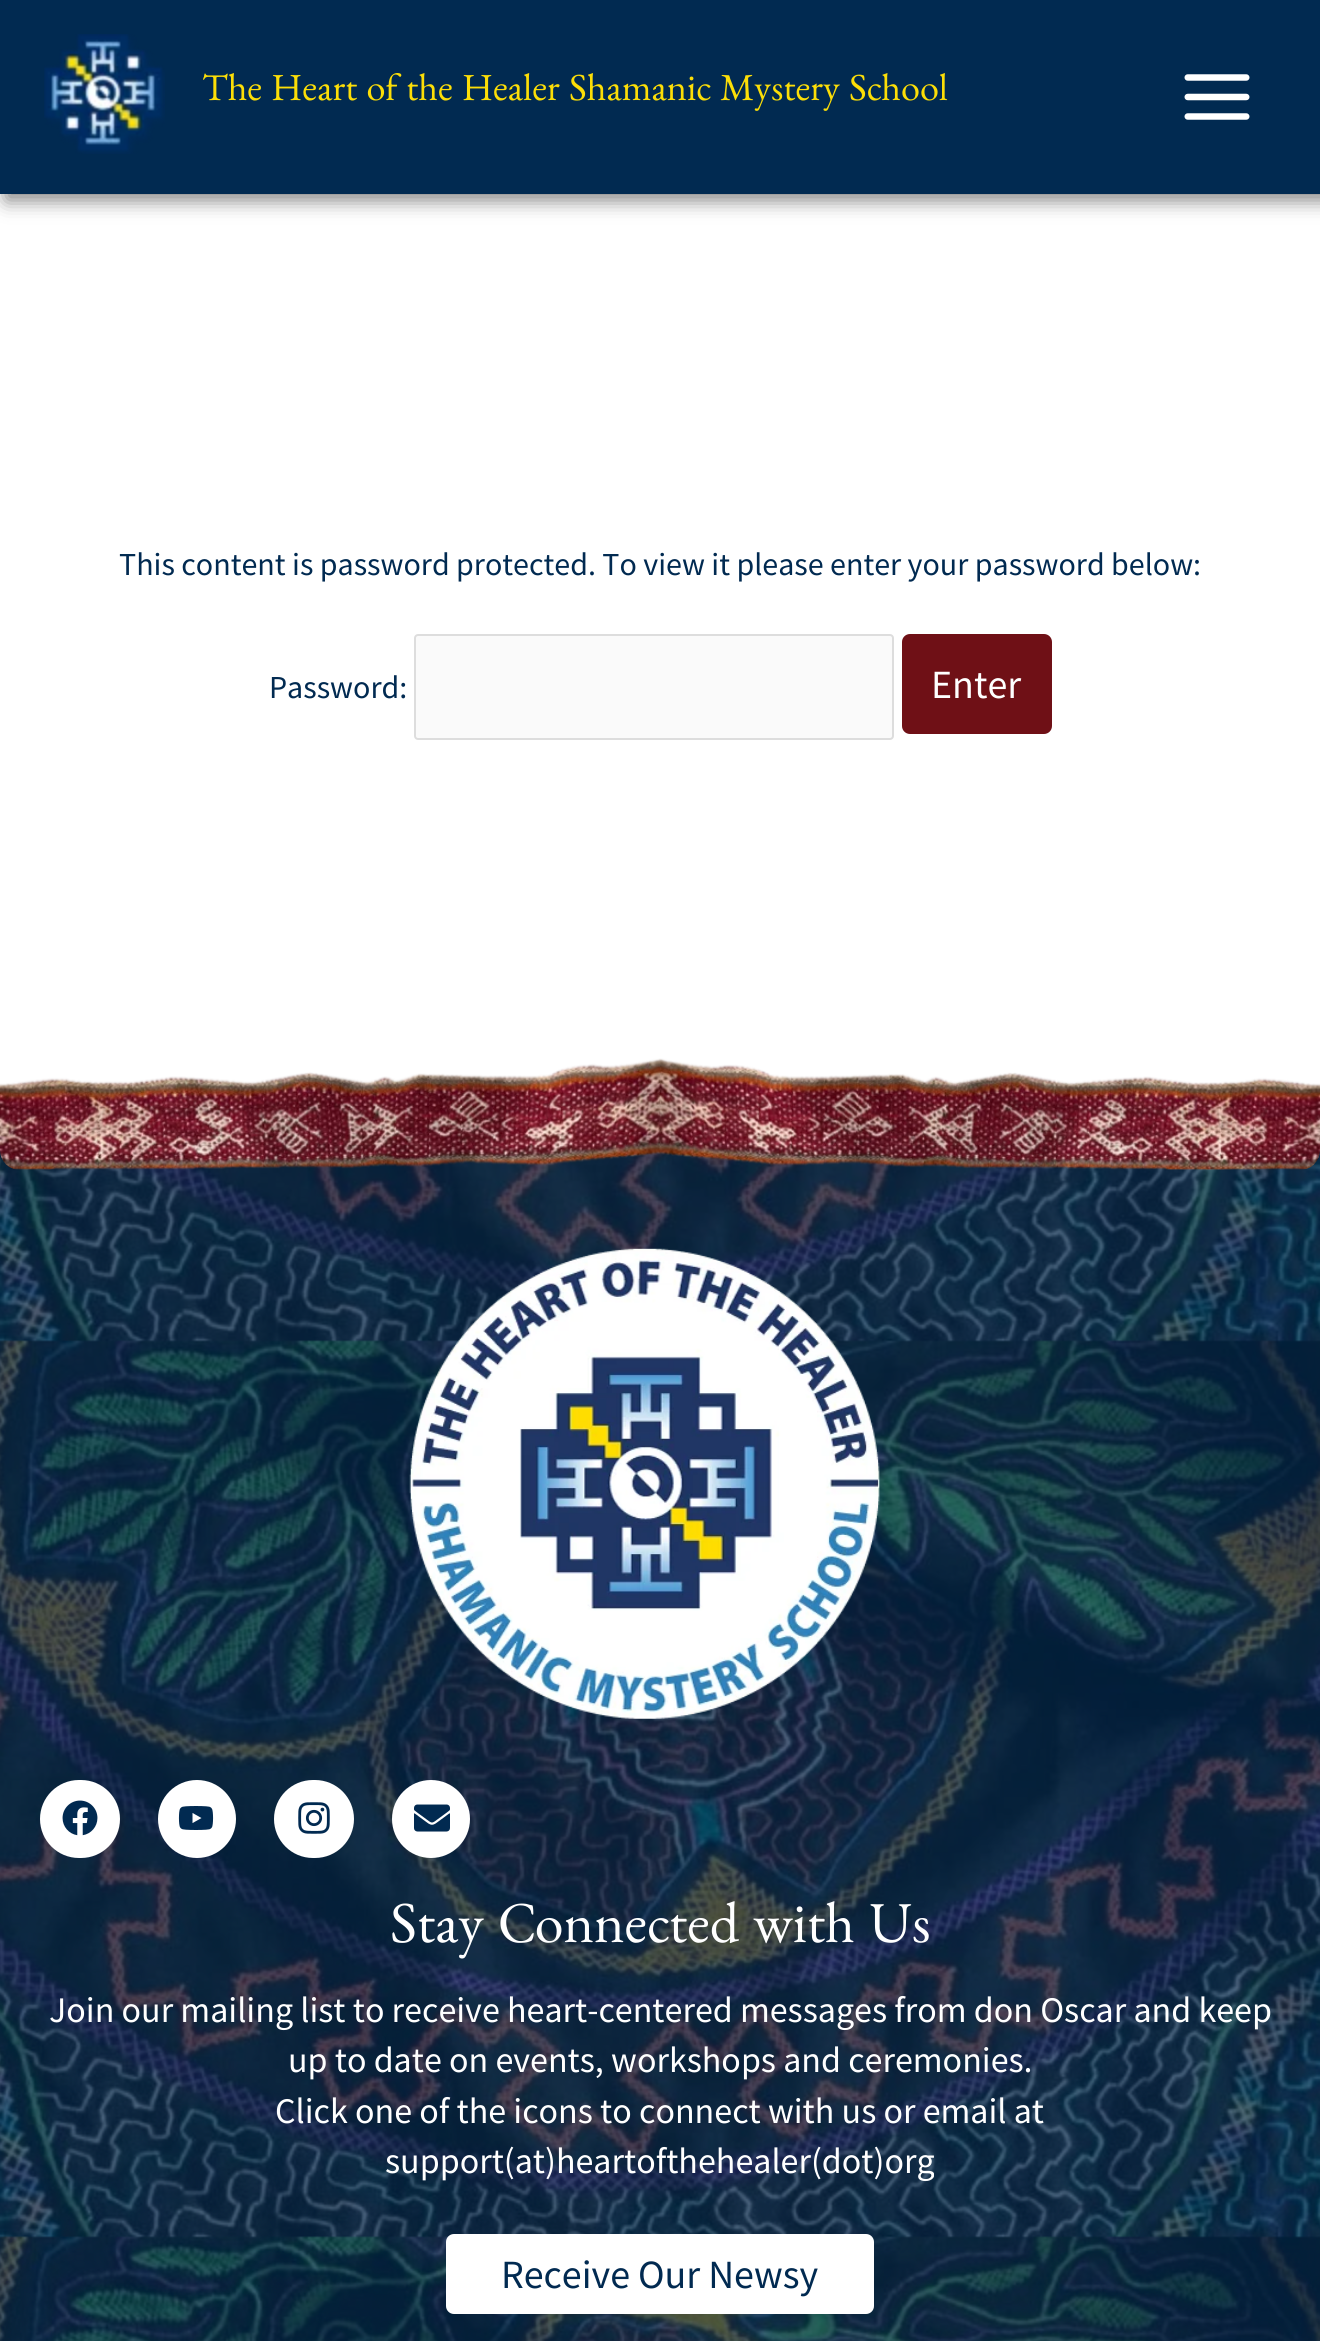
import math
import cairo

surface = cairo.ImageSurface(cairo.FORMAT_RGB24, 1320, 2341)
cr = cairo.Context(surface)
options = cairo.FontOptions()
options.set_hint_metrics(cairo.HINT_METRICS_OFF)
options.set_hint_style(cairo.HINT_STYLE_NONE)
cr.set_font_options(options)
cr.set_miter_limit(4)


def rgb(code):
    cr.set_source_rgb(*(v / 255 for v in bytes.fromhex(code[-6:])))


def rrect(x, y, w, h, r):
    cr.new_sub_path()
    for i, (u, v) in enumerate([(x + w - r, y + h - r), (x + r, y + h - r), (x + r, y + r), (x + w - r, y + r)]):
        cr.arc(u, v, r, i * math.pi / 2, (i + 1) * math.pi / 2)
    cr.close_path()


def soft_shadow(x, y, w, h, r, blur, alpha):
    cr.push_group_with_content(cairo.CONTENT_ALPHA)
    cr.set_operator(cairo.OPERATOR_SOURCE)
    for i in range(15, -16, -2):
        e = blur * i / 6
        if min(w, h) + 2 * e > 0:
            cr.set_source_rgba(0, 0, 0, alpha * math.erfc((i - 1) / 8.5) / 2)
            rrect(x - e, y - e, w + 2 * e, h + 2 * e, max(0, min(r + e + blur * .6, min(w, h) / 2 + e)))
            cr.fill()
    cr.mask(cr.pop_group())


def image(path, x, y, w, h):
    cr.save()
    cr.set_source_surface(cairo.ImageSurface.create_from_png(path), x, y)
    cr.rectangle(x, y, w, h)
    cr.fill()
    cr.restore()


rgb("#ffffff")
cr.paint()
rgb("#000000")
soft_shadow(6, 6, 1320, 194, 0, 10, 0.5)
rgb("#012a51")
cr.rectangle(0, 0, 1320, 194)
cr.fill()
image("img/1.png", 44, 34, 121, 120)
image("img/2.png", 1184, 74, 66, 46)
rgb("#fafafa")
rrect(415, 635, 478, 104, 3)
cr.fill_preserve()
rgb("#dddddd")
cr.stroke()
rgb("#6f1016")
rrect(902, 634, 150, 100, 8)
cr.fill()
image("img/4.png", 0, 1150, 1320, 1191)
image("img/3.png", 0, 1058, 1320, 112)
image("img/5.png", 409, 1248, 471, 471)
rgb("#ffffff")
rrect(40, 1780, 80, 78, 39)
cr.fill()
image("img/6.png", 62, 1800, 36, 36)
cr.arc(197, 1819, 39, 0, 2 * math.pi)
cr.fill()
image("img/7.png", 178, 1806, 36, 24)
rrect(274, 1780, 80, 78, 39)
cr.fill()
image("img/8.png", 298, 1802, 32, 32)
cr.arc(431, 1819, 39, 0, 2 * math.pi)
cr.fill()
image("img/9.png", 414, 1804, 36, 28)
rrect(446, 2234, 428, 80, 8)
cr.fill()
cr.select_font_face("Benne")
cr.set_font_size(38.25)
rgb("#fcde07")
cr.move_to(202, 100)
cr.show_text("The Heart of the Healer Shamanic Mystery School")
cr.select_font_face("Source Sans Pro")
cr.set_font_size(32)
rgb("#012a51")
cr.move_to(119, 575)
cr.show_text("This content is password protected. To view it please enter your password below:")
cr.move_to(269, 698)
cr.show_text("Password:")
cr.set_font_size(40)
rgb("#ffffff")
cr.move_to(931, 698)
cr.show_text("Enter")
cr.select_font_face("Benne")
cr.set_font_size(58)
cr.move_to(390, 1942)
cr.show_text("Stay Connected with Us")
cr.select_font_face("Source Sans Pro")
cr.set_font_size(36)
for x, y, s in [
    (49, 2022, "Join our mailing list to receive heart-centered messages from don Oscar and keep"),
    (288, 2072, "up to date on events, workshops and ceremonies."),
    (275, 2123, "Click one of the icons to connect with us or email at"),
    (385, 2173, "support(at)heartofthehealer(dot)org"),
]:
    cr.move_to(x, y)
    cr.show_text(s)
cr.set_font_size(40)
rgb("#012a51")
cr.move_to(501, 2288)
cr.show_text("Receive Our Newsy")
surface.write_to_png("page.png")
